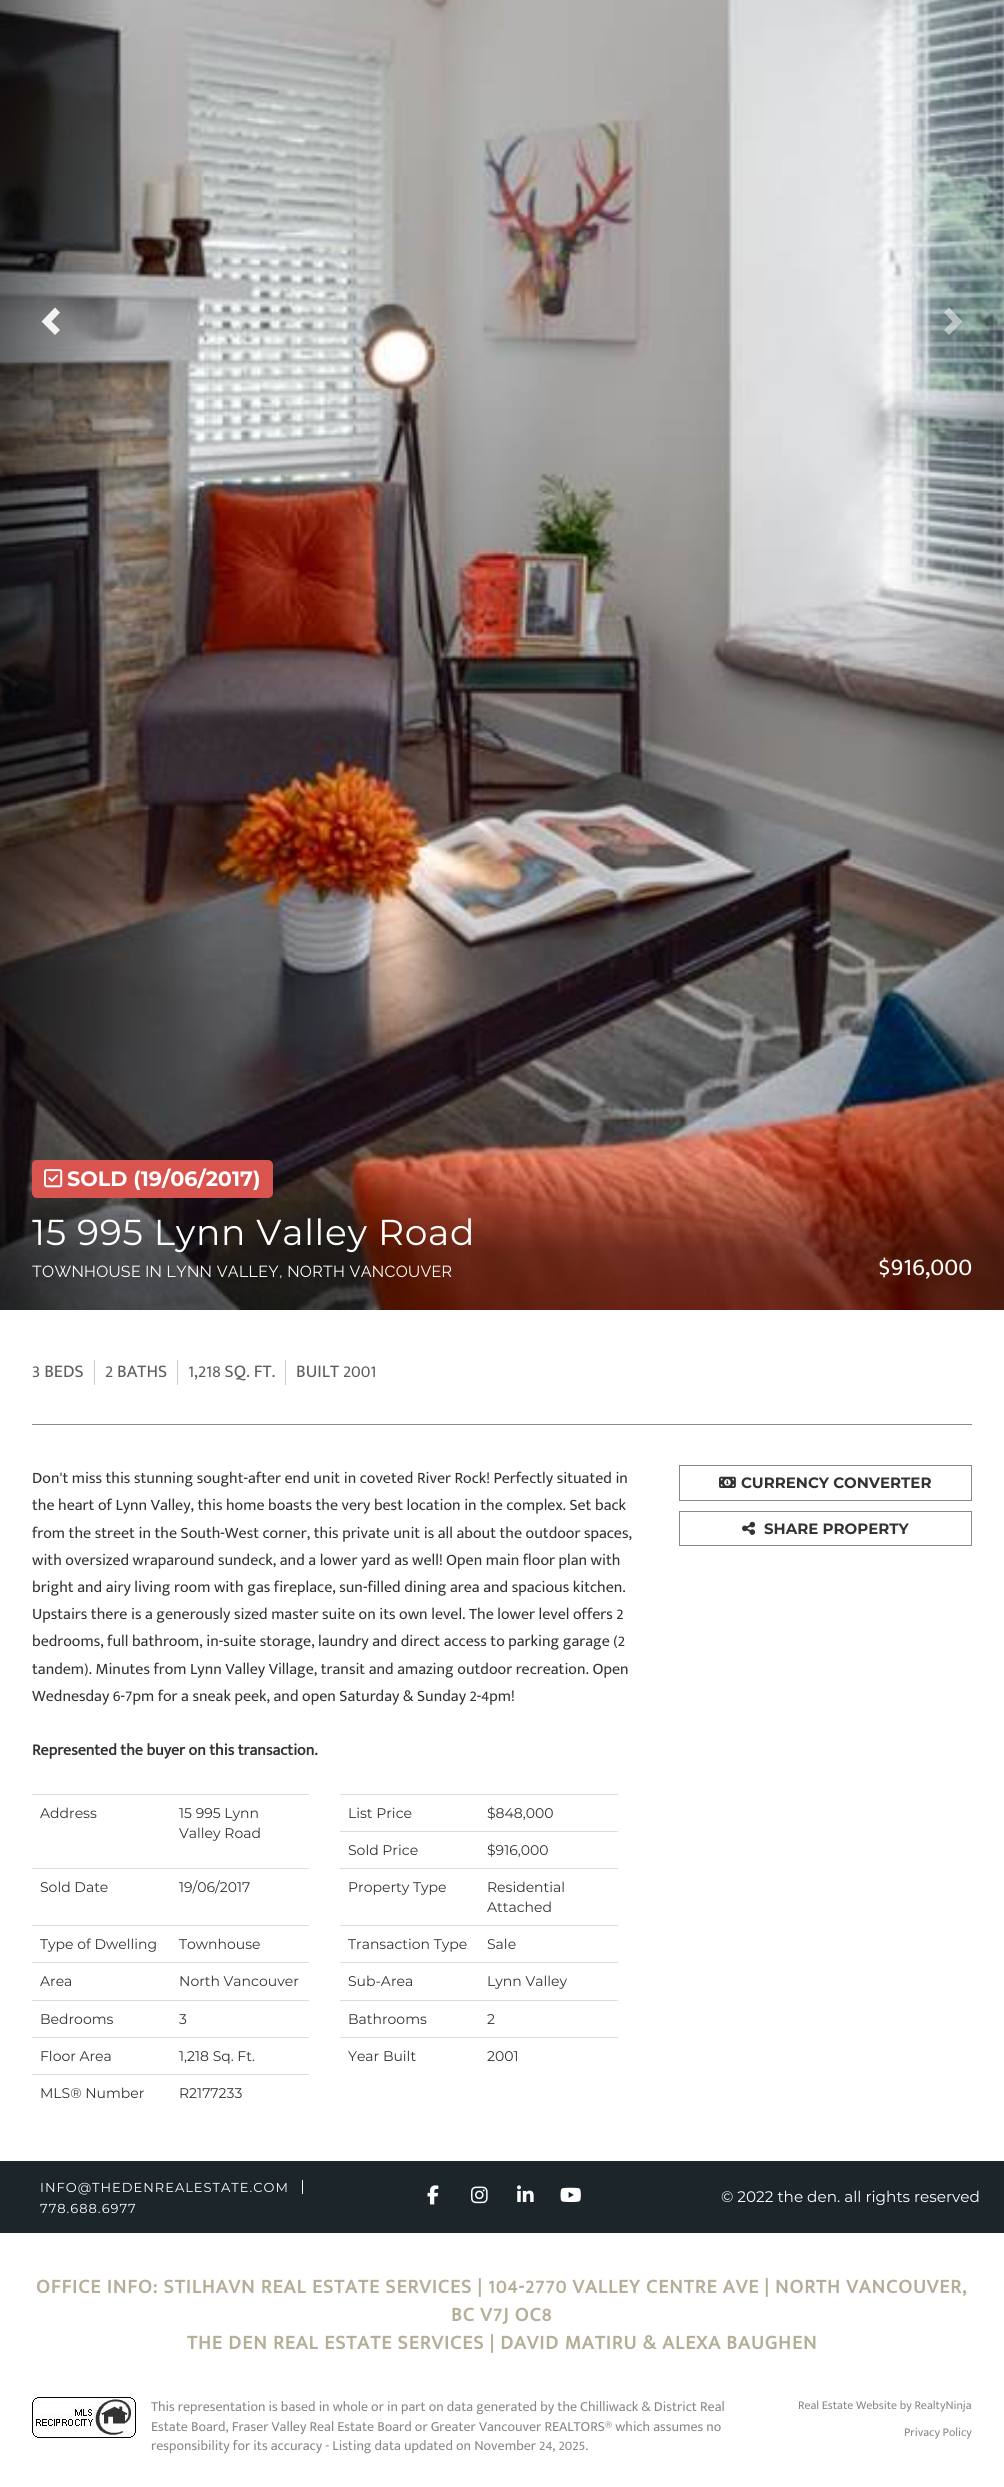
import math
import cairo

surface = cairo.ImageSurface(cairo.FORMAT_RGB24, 1004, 2487)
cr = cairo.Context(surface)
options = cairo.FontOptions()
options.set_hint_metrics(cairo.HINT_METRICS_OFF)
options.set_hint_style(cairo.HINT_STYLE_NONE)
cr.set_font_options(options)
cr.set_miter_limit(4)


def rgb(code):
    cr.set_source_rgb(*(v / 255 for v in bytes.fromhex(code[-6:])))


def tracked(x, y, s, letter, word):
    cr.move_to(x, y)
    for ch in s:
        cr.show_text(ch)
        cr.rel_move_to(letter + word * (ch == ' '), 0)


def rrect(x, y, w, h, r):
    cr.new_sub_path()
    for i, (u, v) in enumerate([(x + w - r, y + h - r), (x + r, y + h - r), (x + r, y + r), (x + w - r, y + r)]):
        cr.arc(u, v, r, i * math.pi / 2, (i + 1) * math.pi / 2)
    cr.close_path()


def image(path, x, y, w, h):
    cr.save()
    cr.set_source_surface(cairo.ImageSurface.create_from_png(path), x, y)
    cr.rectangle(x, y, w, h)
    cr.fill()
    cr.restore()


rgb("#ffffff")
cr.paint()
image("img/1.png", 0, 0, 1004, 1310)
cr.set_source_rgba(1, 1, 1, 0.9)
cr.new_path()
cr.move_to(60, 312.5)
cr.line_to(51.5, 321.5)
cr.line_to(60, 330)
cr.line_to(55, 335)
cr.line_to(41.5, 321.5)
cr.line_to(55, 307.5)
cr.close_path()
cr.fill()
cr.set_source_rgba(1, 1, 1, 0.5)
cr.new_path()
cr.move_to(962.5, 321.5)
cr.line_to(949, 335)
cr.line_to(944, 330)
cr.line_to(952.5, 321.5)
cr.line_to(944, 312.5)
cr.line_to(949, 307.5)
cr.close_path()
cr.fill()
rgb("#d9534f")
rrect(32, 1160, 241, 38, 5)
cr.fill()
image("img/2.png", 44, 1169, 19, 19)
for x, y, w, h, color in [
    (32, 1424, 940, 1, "#888888"),
    (94, 1360, 1, 25, "#cccccc"),
    (177, 1360, 1, 25, "#cccccc"),
    (285, 1360, 1, 25, "#cccccc"),
    (32, 1794, 277, 1, "#dddddd"),
    (340, 1794, 278, 1, "#dddddd"),
    (340, 1831, 278, 1, "#dddddd"),
    (32, 1868, 277, 1, "#dddddd"),
    (340, 1868, 278, 1, "#dddddd"),
    (32, 1925, 277, 1, "#dddddd"),
    (340, 1925, 278, 1, "#dddddd"),
    (32, 1962, 277, 1, "#dddddd"),
    (340, 1962, 278, 1, "#dddddd"),
    (32, 2000, 277, 1, "#dddddd"),
    (340, 2000, 278, 1, "#dddddd"),
    (32, 2037, 277, 1, "#dddddd"),
    (340, 2037, 278, 1, "#dddddd"),
    (32, 2074, 277, 1, "#dddddd"),
]:
    rgb(color)
    cr.rectangle(x, y, w, h)
    cr.fill()
cr.rectangle(679.5, 1465.5, 292, 35)
rgb("#888888")
cr.set_line_width(1)
cr.stroke()
image("img/3.png", 719, 1476, 17, 12)
cr.rectangle(679.5, 1511.5, 292, 34)
cr.stroke()
image("img/4.png", 742, 1521, 14, 14)
rgb("#1c252a")
cr.rectangle(0, 2161, 1004, 72)
cr.fill()
rgb("#ffffff")
cr.rectangle(302, 2180, 1, 14)
cr.fill()
image("img/5.png", 427, 2185, 12, 20)
image("img/6.png", 471, 2186, 17, 18)
image("img/7.png", 517, 2185, 17, 17)
image("img/8.png", 560, 2187, 21, 15)
image("img/9.png", 32, 2397, 104, 41)
cr.select_font_face("Montserrat", cairo.FONT_SLANT_NORMAL, cairo.FONT_WEIGHT_BOLD)
cr.set_font_size(20.75)
cr.move_to(67, 1186)
cr.show_text("SOLD (19/06/2017)")
cr.select_font_face("Montserrat")
cr.set_font_size(36)
tracked(32, 1245, "15 995 Lynn Valley Road", 0.75, 0)
cr.select_font_face("Raleway")
cr.set_font_size(16)
tracked(32, 1277, "TOWNHOUSE IN LYNN VALLEY, NORTH VANCOUVER", 0.3, 0)
cr.select_font_face("Mukta Mahee")
cr.set_font_size(26)
cr.move_to(878, 1275)
cr.show_text("$916,000")
cr.set_font_size(18)
rgb("#5e5e5e")
for x, y, s in [
    (32, 1377, "3 BEDS"),
    (105, 1377, "2 BATHS"),
    (188, 1377, "1,218 SQ. FT."),
    (296, 1377, "BUILT 2001"),
]:
    cr.move_to(x, y)
    cr.show_text(s)
cr.set_font_size(16)
rgb("#333333")
for x, y, s in [
    (32, 1483, "Don't miss this stunning sought-after end unit in coveted River Rock! Perfectly situated in"),
    (32, 1510, "the heart of Lynn Valley, this home boasts the very best location in the complex. Set back"),
    (32, 1538, "from the street in the South-West corner, this private unit is all about the outdoor spaces,"),
    (32, 1565, "with oversized wraparound sundeck, and a lower yard as well! Open main floor plan with"),
    (32, 1592, "bright and airy living room with gas fireplace, sun-filled dining area and spacious kitchen."),
    (32, 1619, "Upstairs there is a generously sized master suite on its own level. The lower level offers 2"),
    (32, 1646, "bedrooms, full bathroom, in-suite storage, laundry and direct access to parking garage (2"),
    (32, 1674, "tandem). Minutes from Lynn Valley Village, transit and amazing outdoor recreation. Open"),
    (32, 1701, "Wednesday 6-7pm for a sneak peek, and open Saturday & Sunday 2-4pm!"),
]:
    cr.move_to(x, y)
    cr.show_text(s)
cr.select_font_face("Mukta Mahee", cairo.FONT_SLANT_NORMAL, cairo.FONT_WEIGHT_BOLD)
cr.move_to(32, 1755)
cr.show_text("Represented the buyer on this transaction.")
cr.select_font_face("Montserrat")
cr.set_font_size(14)
for x, y, s in [
    (40, 1818, "Address"),
    (179, 1818, "15 995 Lynn"),
    (179, 1838, "Valley Road"),
    (348, 1818, "List Price"),
    (487, 1818, "$848,000"),
    (348, 1855, "Sold Price"),
    (487, 1855, "$916,000"),
    (40, 1892, "Sold Date"),
    (179, 1892, "19/06/2017"),
    (348, 1892, "Property Type"),
    (487, 1892, "Residential"),
    (487, 1912, "Attached"),
    (40, 1949, "Type of Dwelling"),
    (179, 1949, "Townhouse"),
    (348, 1949, "Transaction Type"),
    (487, 1949, "Sale"),
    (40, 1986, "Area"),
    (179, 1986, "North Vancouver"),
    (348, 1986, "Sub-Area"),
    (487, 1986, "Lynn Valley"),
    (40, 2024, "Bedrooms"),
    (179, 2024, "3"),
    (348, 2024, "Bathrooms"),
    (487, 2024, "2"),
    (40, 2061, "Floor Area"),
    (179, 2061, "1,218 Sq. Ft."),
    (348, 2061, "Year Built"),
    (487, 2061, "2001"),
    (40, 2098, "MLS® Number"),
    (179, 2098, "R2177233"),
]:
    cr.move_to(x, y)
    cr.show_text(s)
cr.select_font_face("Montserrat", cairo.FONT_SLANT_NORMAL, cairo.FONT_WEIGHT_BOLD)
cr.set_font_size(15)
cr.move_to(741, 1488)
cr.show_text("CURRENCY CONVERTER")
cr.move_to(764, 1534)
cr.show_text("SHARE PROPERTY")
cr.select_font_face("Montserrat")
cr.set_font_size(13)
rgb("#ffffff")
tracked(40, 2192, "INFO@THEDENREALESTATE.COM", 1, 0)
tracked(40, 2213, "778.688.6977", 1, 0)
cr.set_font_size(15.25)
cr.move_to(721, 2202)
cr.show_text("© 2022 the den. all rights reserved")
cr.select_font_face("Mukta Mahee", cairo.FONT_SLANT_NORMAL, cairo.FONT_WEIGHT_BOLD)
cr.set_font_size(20)
rgb("#b5ae99")
for x, y, s in [
    (36, 2293, "OFFICE INFO: STILHAVN REAL ESTATE SERVICES | 104-2770 VALLEY CENTRE AVE | NORTH VANCOUVER,"),
    (451, 2321, "BC V7J OC8"),
    (187, 2349, "THE DEN REAL ESTATE SERVICES | DAVID MATIRU & ALEXA BAUGHEN"),
]:
    tracked(x, y, s, 1, 0)
cr.select_font_face("Mukta Mahee")
cr.set_font_size(14)
rgb("#888888")
for x, y, s in [
    (151, 2411, "This representation is based in whole or in part on data generated by the Chilliwack & District Real"),
    (151, 2431, "Estate Board, Fraser Valley Real Estate Board or Greater Vancouver REALTORS® which assumes no"),
    (151, 2450, "responsibility for its accuracy - Listing data updated on November 24, 2025."),
]:
    cr.move_to(x, y)
    cr.show_text(s)
cr.set_font_size(12)
cr.move_to(798, 2409)
cr.show_text("Real Estate Website by RealtyNinja")
cr.move_to(904, 2436)
cr.show_text("Privacy Policy")
surface.write_to_png("page.png")
